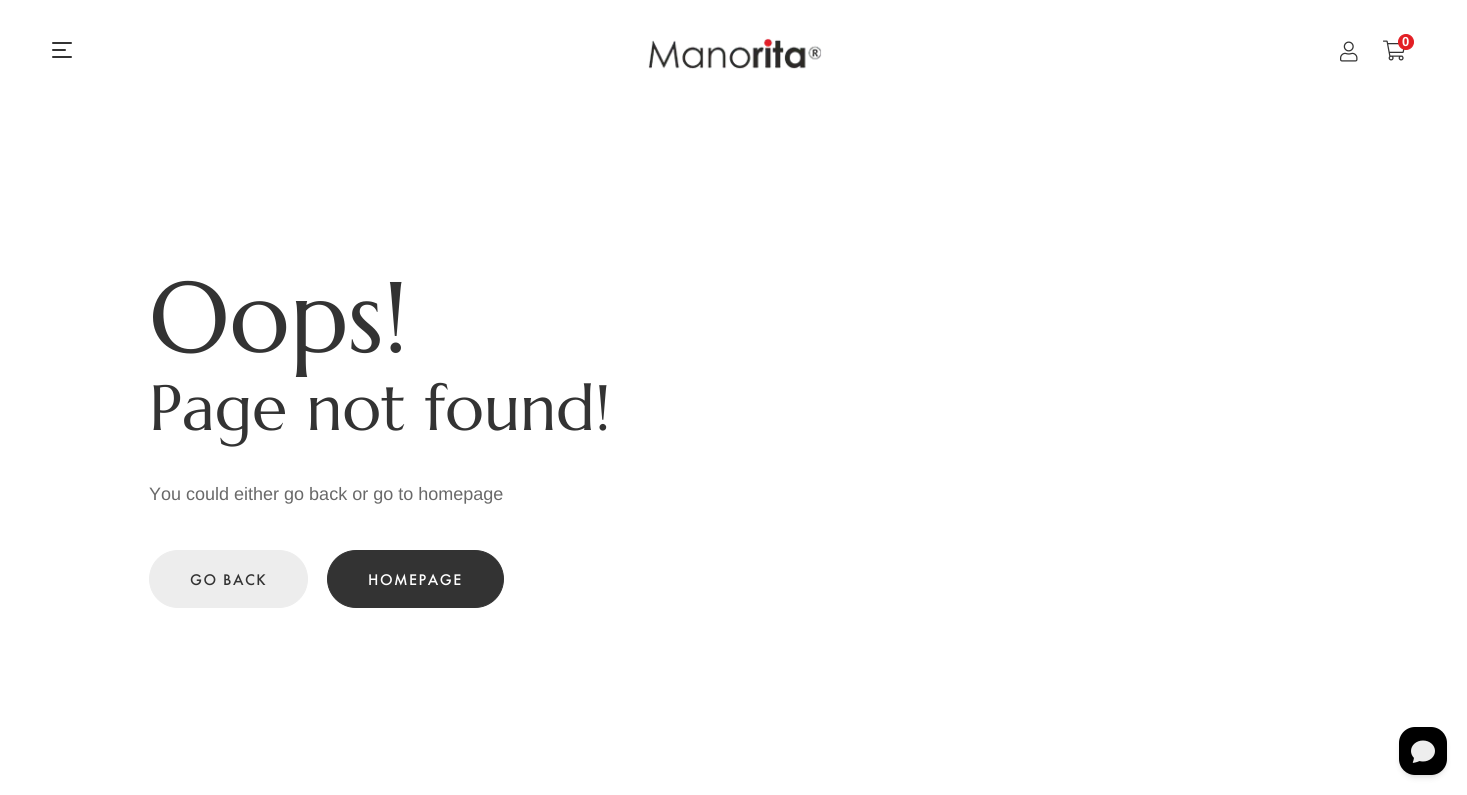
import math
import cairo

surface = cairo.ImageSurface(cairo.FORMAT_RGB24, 1467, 795)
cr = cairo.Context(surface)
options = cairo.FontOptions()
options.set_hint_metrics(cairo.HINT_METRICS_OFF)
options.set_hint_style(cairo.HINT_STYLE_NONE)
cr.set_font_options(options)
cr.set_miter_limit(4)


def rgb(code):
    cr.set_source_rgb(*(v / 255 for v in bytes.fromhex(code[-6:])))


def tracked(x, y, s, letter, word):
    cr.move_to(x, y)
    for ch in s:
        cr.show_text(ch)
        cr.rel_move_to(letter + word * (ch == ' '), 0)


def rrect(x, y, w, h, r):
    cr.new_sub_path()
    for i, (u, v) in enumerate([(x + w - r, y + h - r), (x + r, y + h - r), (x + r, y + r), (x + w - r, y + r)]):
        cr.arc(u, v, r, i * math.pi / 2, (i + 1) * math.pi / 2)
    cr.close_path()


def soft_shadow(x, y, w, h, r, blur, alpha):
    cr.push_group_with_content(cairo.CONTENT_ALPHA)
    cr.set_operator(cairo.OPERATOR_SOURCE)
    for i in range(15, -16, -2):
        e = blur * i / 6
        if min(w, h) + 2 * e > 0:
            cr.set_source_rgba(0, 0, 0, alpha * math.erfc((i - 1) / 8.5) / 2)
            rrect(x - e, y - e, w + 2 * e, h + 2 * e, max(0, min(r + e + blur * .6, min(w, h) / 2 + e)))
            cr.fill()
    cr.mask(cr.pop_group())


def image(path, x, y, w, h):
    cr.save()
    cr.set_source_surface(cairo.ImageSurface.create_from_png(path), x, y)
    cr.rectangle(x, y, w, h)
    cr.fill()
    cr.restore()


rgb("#ffffff")
cr.paint()
rgb("#333333")
rrect(52, 42, 20, 2, 1)
cr.fill()
rrect(52, 49, 14, 2, 1)
cr.fill()
rrect(52, 56, 20, 2, 1)
cr.fill()
image("img/1.png", 648, 38, 174, 31)
image("img/2.png", 1340, 41, 18, 21)
image("img/3.png", 1383, 40, 22, 21)
rgb("#e31e24")
cr.arc(1406, 42, 7.5, 0, 2 * math.pi)
cr.fill_preserve()
cr.set_line_width(1)
cr.stroke()
rgb("#ededed")
rrect(149.5, 550.5, 158, 57, 28.5)
cr.fill_preserve()
cr.stroke()
rgb("#333333")
rrect(327.5, 550.5, 176, 57, 28.5)
cr.fill_preserve()
cr.stroke()
rgb("#000000")
soft_shadow(1401, 731, 44, 44, 14, 2, 0.1)
soft_shadow(1400, 732, 46, 46, 15, 3, 0.1)
rgb("#000000")
rrect(1399, 727, 48, 48, 16)
cr.fill()
image("img/4.png", 1411, 740, 24, 23)
cr.select_font_face("Liberation Sans", cairo.FONT_SLANT_NORMAL, cairo.FONT_WEIGHT_BOLD)
cr.set_font_size(13)
rgb("#ffffff")
cr.move_to(1402, 46)
cr.show_text("0")
cr.select_font_face("Marcellus")
cr.set_font_size(100)
rgb("#333333")
cr.move_to(149, 352)
cr.show_text("Oops!")
cr.set_font_size(64)
cr.move_to(149, 430)
cr.show_text("Page not found!")
cr.select_font_face("Liberation Sans")
cr.set_font_size(18)
rgb("#696969")
cr.move_to(149, 500)
cr.show_text("You could either go back or go to homepage")
cr.select_font_face("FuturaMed")
cr.set_font_size(16)
rgb("#333333")
tracked(190, 585, "GO BACK", 1.5, 0)
rgb("#ffffff")
tracked(368, 585, "HOMEPAGE", 1.5, 0)
surface.write_to_png("page.png")
